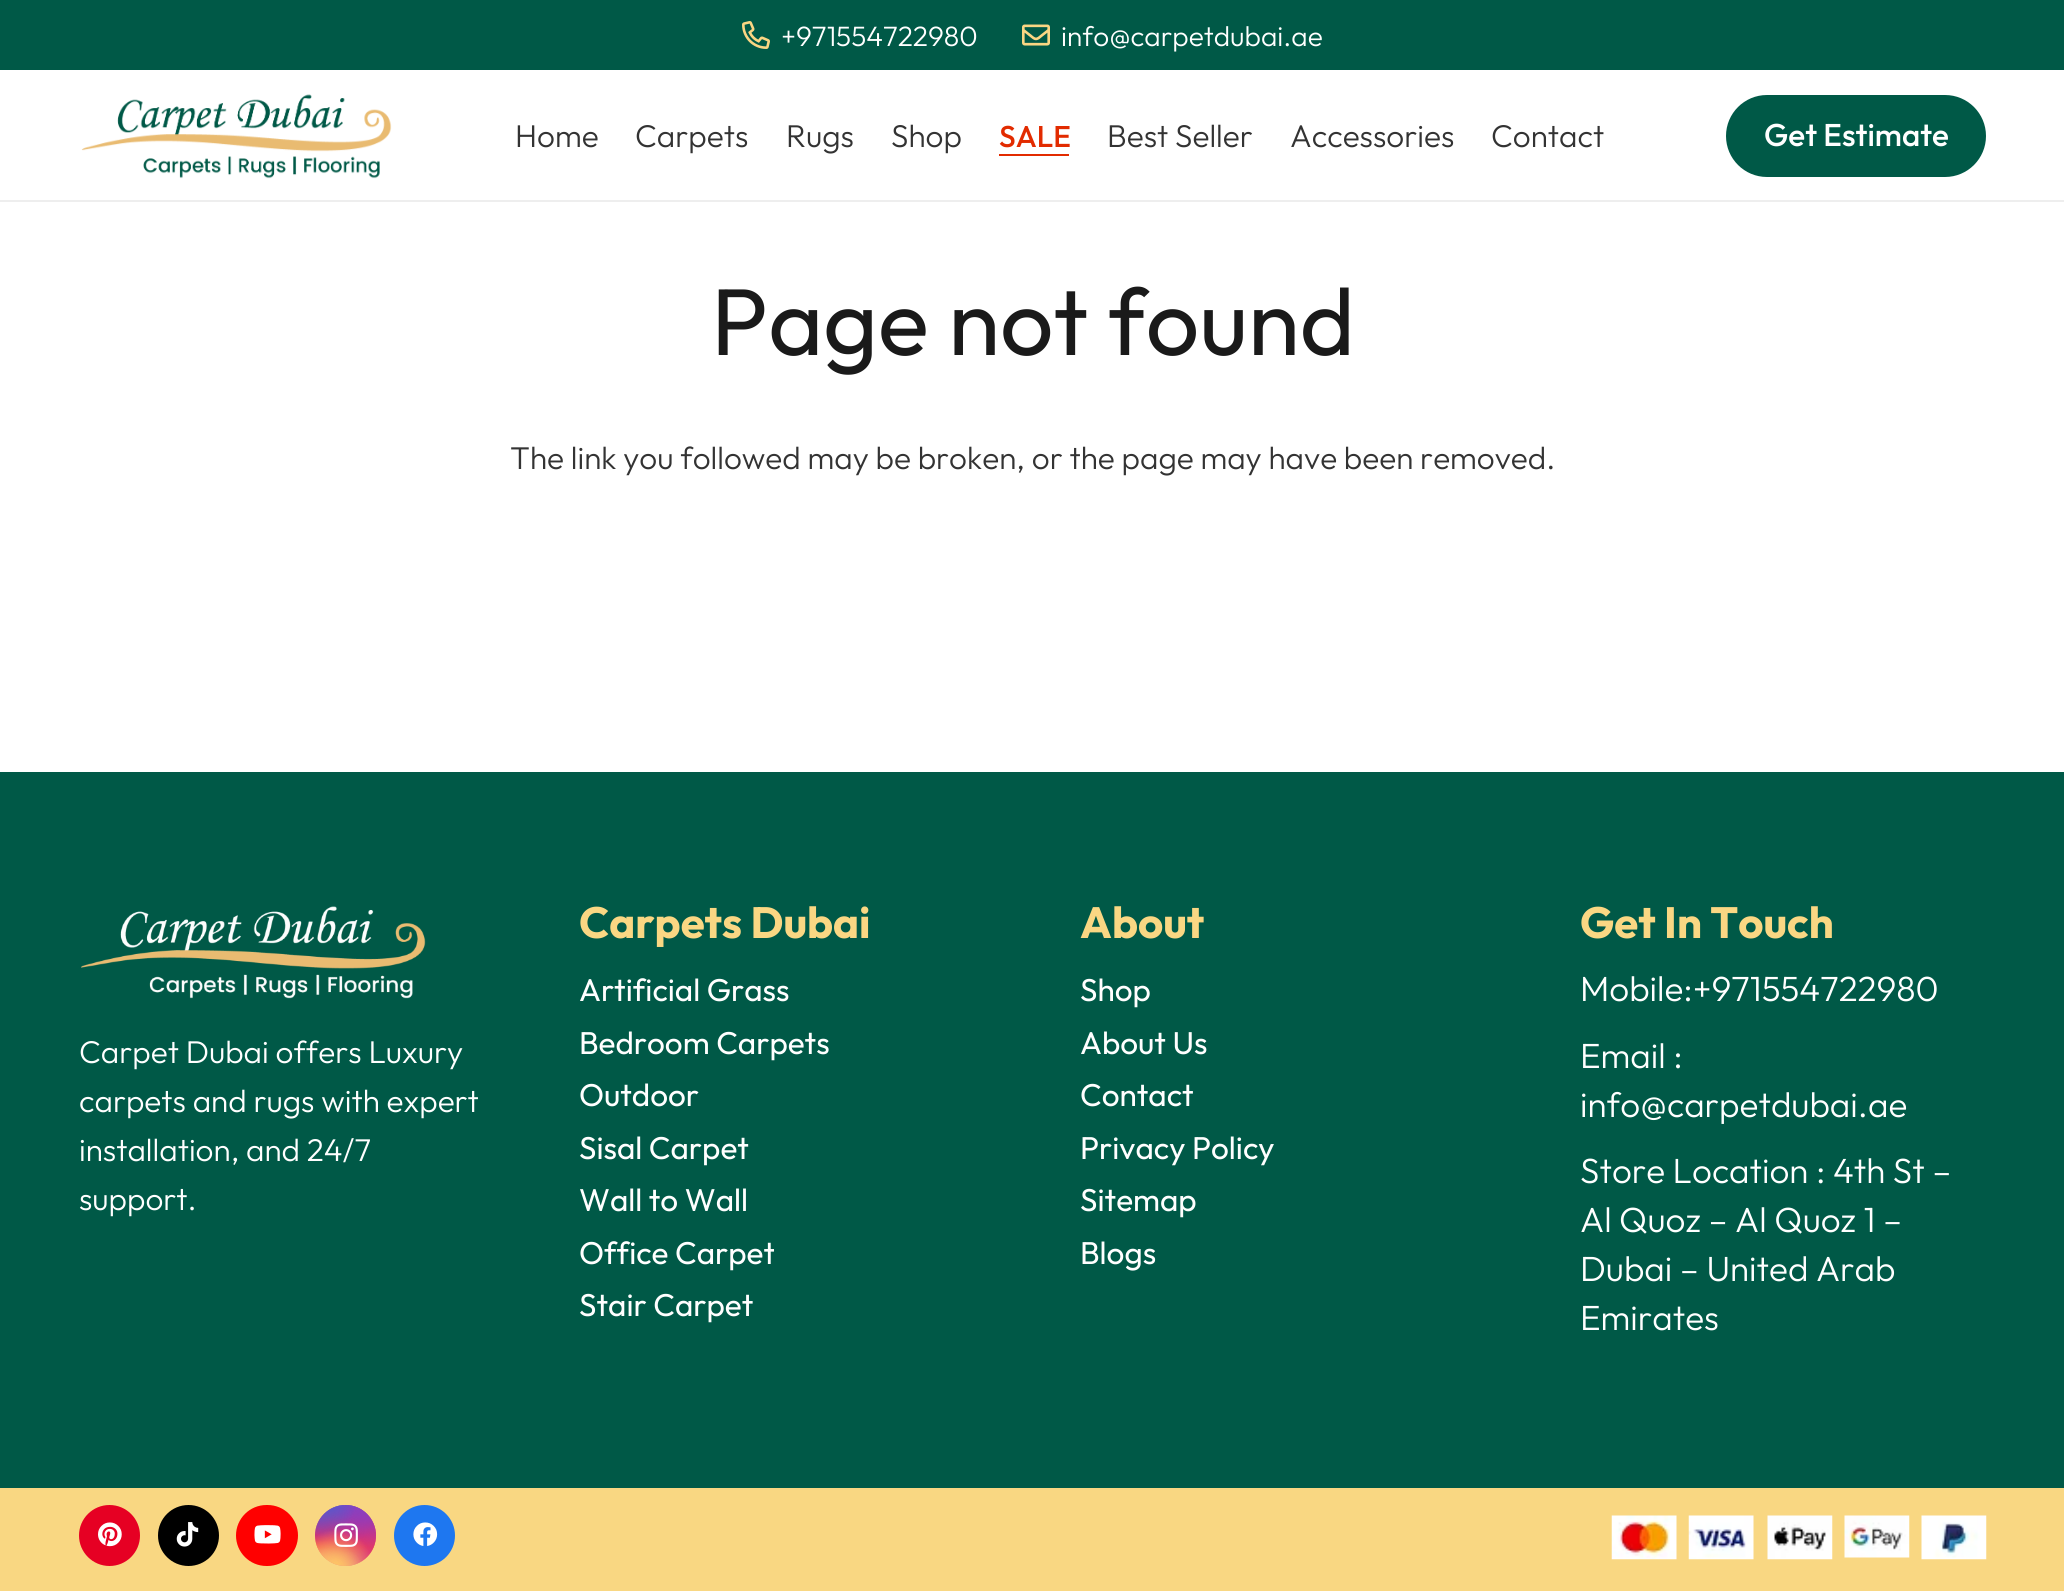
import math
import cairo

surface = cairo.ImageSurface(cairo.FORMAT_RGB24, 2064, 1591)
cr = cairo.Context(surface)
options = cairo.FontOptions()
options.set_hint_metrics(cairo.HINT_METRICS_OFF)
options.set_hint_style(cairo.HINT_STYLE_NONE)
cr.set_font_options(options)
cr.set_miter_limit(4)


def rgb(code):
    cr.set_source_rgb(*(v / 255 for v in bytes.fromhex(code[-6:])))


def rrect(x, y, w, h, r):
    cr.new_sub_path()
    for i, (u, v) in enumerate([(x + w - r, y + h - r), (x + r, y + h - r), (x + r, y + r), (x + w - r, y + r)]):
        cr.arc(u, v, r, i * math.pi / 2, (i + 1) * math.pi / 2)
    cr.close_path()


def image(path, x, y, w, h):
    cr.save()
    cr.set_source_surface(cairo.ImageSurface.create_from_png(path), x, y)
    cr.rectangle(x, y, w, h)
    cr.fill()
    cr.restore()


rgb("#ffffff")
cr.paint()
rgb("#005947")
cr.rectangle(0, 0, 2064, 70)
cr.fill()
image("img/1.png", 742, 21, 28, 28)
image("img/2.png", 1022, 24, 28, 22)
rgb("#eeeeee")
cr.rectangle(0, 200, 2064, 2)
cr.fill()
image("img/3.png", 81, 94, 311, 85)
rgb("#e22b00")
cr.rectangle(999, 154, 70, 2)
cr.fill()
rgb("#005947")
rrect(1726, 95, 260, 82, 41)
cr.fill()
cr.rectangle(0, 772, 2064, 716)
cr.fill()
image("img/4.png", 81, 906, 345, 93)
rgb("#f9d782")
cr.rectangle(0, 1488, 2064, 103)
cr.fill()
rgb("#e60023")
cr.arc(109.5, 1535.5, 30.5, 0, 2 * math.pi)
cr.fill()
image("img/5.png", 98, 1522, 24, 25)
rgb("#000000")
cr.arc(188.5, 1535.5, 30.5, 0, 2 * math.pi)
cr.fill()
image("img/6.png", 176, 1522, 23, 25)
rgb("#ff0000")
rrect(236, 1505, 62, 61, 30.5)
cr.fill()
image("img/7.png", 254, 1525, 27, 19)
gradient = cairo.LinearGradient(346, 1505, 346, 1566)
gradient.add_color_stop_rgba(0, 0.396, 0.349, 0.792, 1)
gradient.add_color_stop_rgba(0.3, 0.737, 0.192, 0.561, 1)
gradient.add_color_stop_rgba(0.5, 0.894, 0.18, 0.4, 1)
gradient.add_color_stop_rgba(0.7, 0.98, 0.325, 0.196, 1)
gradient.add_color_stop_rgba(1, 1, 0.863, 0.502, 1)
cr.set_source(gradient)
cr.arc(345.5, 1535.5, 30.5, 0, 2 * math.pi)
cr.fill()
gradient = cairo.RadialGradient(376, 1566, 0, 376, 1566, 87)
gradient.add_color_stop_rgba(0, 0.851, 0.192, 0.478, 1)
gradient.add_color_stop_rgba(1, 0.851, 0.192, 0.478, 0)
cr.set_source(gradient)
cr.arc(345.5, 1535.5, 30.5, 0, 2 * math.pi)
cr.fill()
gradient = cairo.RadialGradient(0, 0, 0, 0, 0, 1)
gradient.set_matrix(cairo.Matrix(1 / 52, 0, 0, 1 / 104, -1 * 352 / 52, -1 * 1493 / 104))
gradient.add_color_stop_rgba(0, 0.537, 0.239, 0.761, 1)
gradient.add_color_stop_rgba(0.5, 0.537, 0.239, 0.761, 0)
cr.set_source(gradient)
cr.arc(345.5, 1535.5, 30.5, 0, 2 * math.pi)
cr.fill()
gradient = cairo.RadialGradient(376, 1505, 0, 376, 1505, 87)
gradient.add_color_stop_rgba(0, 0.537, 0.239, 0.761, 1)
gradient.add_color_stop_rgba(0.5, 0.537, 0.239, 0.761, 0)
cr.set_source(gradient)
cr.arc(345.5, 1535.5, 30.5, 0, 2 * math.pi)
cr.fill()
gradient = cairo.RadialGradient(0, 0, 0, 0, 0, 1)
gradient.set_matrix(cairo.Matrix(1 / 69, 0, 0, 1 / 130, -1 * 327 / 69, -1 * 1474 / 130))
gradient.add_color_stop_rgba(0, 0.322, 0.345, 0.812, 1)
gradient.add_color_stop_rgba(0.5, 0.322, 0.345, 0.812, 0)
cr.set_source(gradient)
cr.arc(345.5, 1535.5, 30.5, 0, 2 * math.pi)
cr.fill()
gradient = cairo.RadialGradient(0, 0, 0, 0, 0, 1)
gradient.set_matrix(cairo.Matrix(1 / 87, 0, 0, 1 / 108, -1 * 315 / 87, -1 * 1490 / 108))
gradient.add_color_stop_rgba(0, 0.322, 0.345, 0.812, 1)
gradient.add_color_stop_rgba(0.5, 0.322, 0.345, 0.812, 0)
cr.set_source(gradient)
cr.arc(345.5, 1535.5, 30.5, 0, 2 * math.pi)
cr.fill()
gradient = cairo.RadialGradient(321, 1591, 0, 321, 1591, 102)
gradient.add_color_stop_rgba(0, 0.996, 0.855, 0.494, 1)
gradient.add_color_stop_rgba(0.5, 0.996, 0.855, 0.494, 0)
cr.set_source(gradient)
cr.arc(345.5, 1535.5, 30.5, 0, 2 * math.pi)
cr.fill()
gradient = cairo.RadialGradient(336, 1566, 0, 336, 1566, 73)
gradient.add_color_stop_rgba(0, 0.996, 0.773, 0.392, 1)
gradient.add_color_stop_rgba(0.5, 0.996, 0.773, 0.392, 0)
cr.set_source(gradient)
cr.arc(345.5, 1535.5, 30.5, 0, 2 * math.pi)
cr.fill()
image("img/8.png", 334, 1523, 24, 24)
rgb("#1e77f0")
cr.arc(424.5, 1535.5, 30.5, 0, 2 * math.pi)
cr.fill()
image("img/9.png", 413, 1522, 25, 24)
image("img/10.png", 1611, 1515, 66, 45)
image("img/11.png", 1688, 1515, 66, 45)
image("img/12.png", 1767, 1515, 66, 45)
image("img/13.png", 1844, 1515, 66, 43)
image("img/14.png", 1921, 1515, 66, 45)
cr.select_font_face("Outfit Light")
cr.set_font_size(28)
rgb("#ffffff")
cr.move_to(781, 46)
cr.show_text("+971554722980")
cr.move_to(1061, 46)
cr.show_text("info@carpetdubai.ae")
cr.set_font_size(31.5)
rgb("#333333")
for x, y, s in [
    (515, 147, "Home"),
    (635, 147, "Carpets"),
    (786, 147, "Rugs"),
    (891, 147, "Shop"),
]:
    cr.move_to(x, y)
    cr.show_text(s)
cr.select_font_face("Outfit Medium")
cr.set_font_size(30)
rgb("#e22b00")
cr.move_to(999, 147)
cr.show_text("SALE")
cr.select_font_face("Outfit Light")
cr.set_font_size(31.5)
rgb("#333333")
for x, y, s in [
    (1107, 147, "Best Seller"),
    (1290, 147, "Accessories"),
    (1491, 147, "Contact"),
]:
    cr.move_to(x, y)
    cr.show_text(s)
cr.select_font_face("Outfit Medium")
rgb("#ffffff")
cr.move_to(1764, 146)
cr.show_text("Get Estimate")
cr.select_font_face("Outfit")
cr.set_font_size(94.5)
rgb("#1a1a1a")
cr.move_to(711, 355)
cr.show_text("Page not found")
cr.select_font_face("Outfit Light")
cr.set_font_size(31.5)
rgb("#333333")
cr.move_to(510, 469)
cr.show_text("The link you followed may be broken, or the page may have been removed.")
rgb("#ffffff")
for x, y, s in [
    (79, 1063, "Carpet Dubai offers Luxury"),
    (79, 1112, "carpets and rugs with expert"),
    (79, 1161, "installation, and 24/7"),
    (79, 1210, "support."),
]:
    cr.move_to(x, y)
    cr.show_text(s)
cr.select_font_face("Outfit", cairo.FONT_SLANT_NORMAL, cairo.FONT_WEIGHT_BOLD)
cr.set_font_size(43.75)
rgb("#fad783")
cr.move_to(579, 938)
cr.show_text("Carpets Dubai")
cr.select_font_face("Outfit")
cr.set_font_size(31.5)
rgb("#ffffff")
for x, y, s in [
    (579, 1001, "Artificial Grass"),
    (579, 1054, "Bedroom Carpets"),
    (579, 1106, "Outdoor"),
    (579, 1159, "Sisal Carpet"),
    (579, 1211, "Wall to Wall"),
    (579, 1264, "Office Carpet"),
    (579, 1316, "Stair Carpet"),
]:
    cr.move_to(x, y)
    cr.show_text(s)
cr.select_font_face("Outfit", cairo.FONT_SLANT_NORMAL, cairo.FONT_WEIGHT_BOLD)
cr.set_font_size(43.75)
rgb("#fad783")
cr.move_to(1080, 938)
cr.show_text("About")
cr.select_font_face("Outfit")
cr.set_font_size(31.5)
rgb("#ffffff")
for x, y, s in [
    (1080, 1001, "Shop"),
    (1080, 1054, "About Us"),
    (1080, 1106, "Contact"),
    (1080, 1159, "Privacy Policy"),
    (1080, 1211, "Sitemap"),
    (1080, 1264, "Blogs"),
]:
    cr.move_to(x, y)
    cr.show_text(s)
cr.select_font_face("Outfit", cairo.FONT_SLANT_NORMAL, cairo.FONT_WEIGHT_BOLD)
cr.set_font_size(43.75)
rgb("#fad783")
cr.move_to(1580, 938)
cr.show_text("Get In Touch")
cr.select_font_face("Outfit Light")
cr.set_font_size(35)
rgb("#ffffff")
for x, y, s in [
    (1580, 1001, "Mobile:+971554722980"),
    (1580, 1068, "Email :"),
    (1580, 1117, "info@carpetdubai.ae"),
    (1580, 1183, "Store Location : 4th St –"),
    (1580, 1232, "Al Quoz – Al Quoz 1 –"),
    (1580, 1281, "Dubai – United Arab"),
    (1580, 1330, "Emirates"),
]:
    cr.move_to(x, y)
    cr.show_text(s)
surface.write_to_png("page.png")
